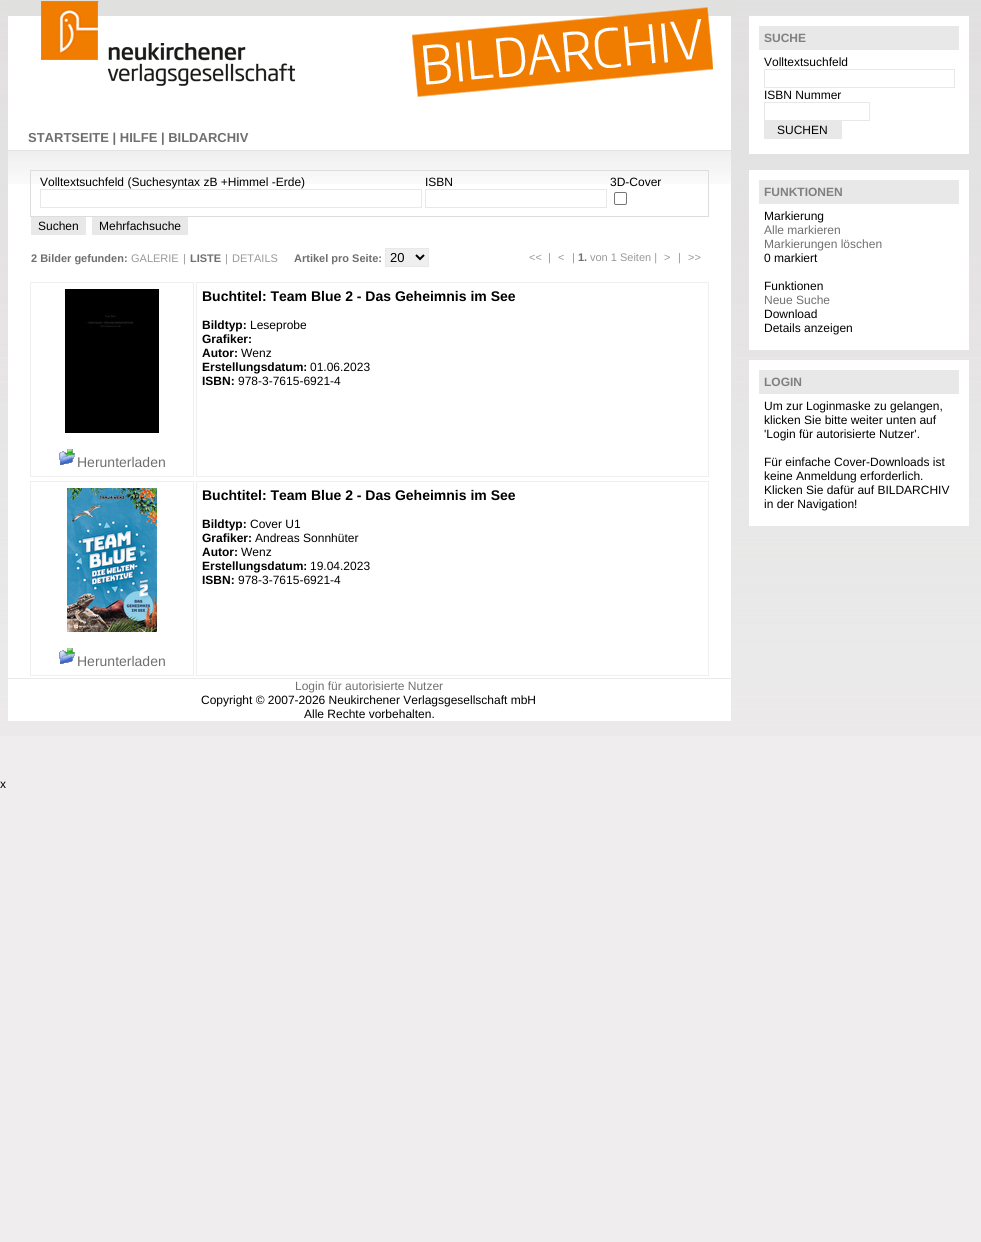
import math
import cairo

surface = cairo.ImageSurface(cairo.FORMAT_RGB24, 981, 1242)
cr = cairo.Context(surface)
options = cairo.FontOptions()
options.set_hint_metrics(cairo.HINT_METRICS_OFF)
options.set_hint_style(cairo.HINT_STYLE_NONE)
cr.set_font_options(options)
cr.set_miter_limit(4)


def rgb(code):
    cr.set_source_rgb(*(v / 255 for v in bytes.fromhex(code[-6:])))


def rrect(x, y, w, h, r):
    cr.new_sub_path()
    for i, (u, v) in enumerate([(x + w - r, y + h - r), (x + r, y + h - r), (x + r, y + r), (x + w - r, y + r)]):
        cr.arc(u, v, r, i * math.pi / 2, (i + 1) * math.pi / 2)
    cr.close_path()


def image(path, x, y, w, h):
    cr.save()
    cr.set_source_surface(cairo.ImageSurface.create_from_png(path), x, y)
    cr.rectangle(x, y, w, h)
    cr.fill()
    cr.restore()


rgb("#efeded")
cr.paint()
image("img/1.png", 0, 0, 981, 736)
rgb("#ffffff")
cr.rectangle(749, 16, 220, 138)
cr.fill()
rgb("#e8e8e8")
cr.rectangle(759, 26, 200, 24)
cr.fill()
cr.rectangle(764.5, 69.5, 190, 18)
cr.set_line_width(1)
cr.stroke()
cr.rectangle(764.5, 102.5, 105, 18)
cr.stroke()
cr.rectangle(764, 121, 78, 18)
cr.fill()
rgb("#ffffff")
cr.rectangle(8, 97, 723, 53)
cr.fill()
image("img/2.png", 8, 0, 723, 97)
cr.rectangle(8, 184, 723, 494)
cr.fill()
image("img/3.png", 8, 150, 723, 34)
cr.rectangle(30.5, 170.5, 678, 46)
rgb("#dddddd")
cr.stroke()
cr.rectangle(40.5, 189.5, 381, 18)
rgb("#e8e8e8")
cr.stroke()
cr.rectangle(425.5, 189.5, 181, 18)
cr.stroke()
rrect(614.5, 192.5, 12, 12, 1.5)
rgb("#767676")
cr.stroke()
rgb("#e8e8e8")
cr.rectangle(31, 217, 55, 18)
cr.fill()
cr.rectangle(92, 217, 96, 18)
cr.fill()
rgb("#efefef")
cr.rectangle(385.5, 248.5, 43, 18)
cr.fill_preserve()
rgb("#e8e8e8")
cr.stroke()
cr.new_path()
cr.move_to(416, 255)
cr.line_to(420, 259)
cr.line_to(424, 255)
rgb("#000000")
cr.set_line_width(2)
cr.stroke()
cr.rectangle(196.5, 282.5, 512, 194)
rgb("#efefef")
cr.set_line_width(1)
cr.stroke()
cr.rectangle(30.5, 282.5, 163, 194)
cr.stroke()
image("img/4.png", 65, 289, 94, 144)
image("img/5.png", 59, 449, 16, 16)
cr.rectangle(196.5, 481.5, 512, 194)
cr.stroke()
cr.rectangle(30.5, 481.5, 163, 194)
cr.stroke()
image("img/6.png", 67, 488, 90, 144)
image("img/5.png", 59, 648, 16, 16)
for x, y, w, h, color in [
    (749, 170, 220, 180, "#ffffff"),
    (759, 180, 200, 24, "#e8e8e8"),
    (749, 360, 220, 166, "#ffffff"),
    (759, 370, 200, 24, "#e8e8e8"),
    (8, 679, 723, 42, "#ffffff"),
]:
    rgb(color)
    cr.rectangle(x, y, w, h)
    cr.fill()
cr.select_font_face("Liberation Sans", cairo.FONT_SLANT_NORMAL, cairo.FONT_WEIGHT_BOLD)
cr.set_font_size(12)
rgb("#808080")
cr.move_to(764, 42)
cr.show_text("SUCHE")
cr.select_font_face("Liberation Sans")
rgb("#000000")
for x, y, s in [
    (764, 66, "Volltextsuchfeld"),
    (764, 99, "ISBN Nummer"),
    (777, 134, "SUCHEN"),
]:
    cr.move_to(x, y)
    cr.show_text(s)
cr.select_font_face("Liberation Sans", cairo.FONT_SLANT_NORMAL, cairo.FONT_WEIGHT_BOLD)
cr.set_font_size(13)
rgb("#6f6f6f")
cr.move_to(28, 142)
cr.show_text("STARTSEITE | HILFE | BILDARCHIV")
cr.select_font_face("Liberation Sans")
cr.set_font_size(12)
rgb("#000000")
for x, y, s in [
    (40, 186, "Volltextsuchfeld (Suchesyntax zB +Himmel -Erde)"),
    (425, 186, "ISBN"),
    (610, 186, "3D-Cover"),
    (38, 230, "Suchen"),
    (99, 230, "Mehrfachsuche"),
]:
    cr.move_to(x, y)
    cr.show_text(s)
cr.select_font_face("Liberation Sans", cairo.FONT_SLANT_NORMAL, cairo.FONT_WEIGHT_BOLD)
cr.set_font_size(11)
rgb("#6f6f6f")
cr.move_to(31, 262)
cr.show_text("2 Bilder gefunden:")
cr.select_font_face("Liberation Sans")
rgb("#999999")
cr.move_to(131, 262)
cr.show_text("GALERIE")
cr.move_to(183, 262)
cr.show_text("|")
cr.select_font_face("Liberation Sans", cairo.FONT_SLANT_NORMAL, cairo.FONT_WEIGHT_BOLD)
rgb("#6f6f6f")
cr.move_to(190, 262)
cr.show_text("LISTE")
cr.select_font_face("Liberation Sans")
rgb("#999999")
cr.move_to(225, 262)
cr.show_text("|")
cr.move_to(232, 262)
cr.show_text("DETAILS")
cr.select_font_face("Liberation Sans", cairo.FONT_SLANT_NORMAL, cairo.FONT_WEIGHT_BOLD)
rgb("#6f6f6f")
cr.move_to(294, 262)
cr.show_text("Artikel pro Seite:")
cr.select_font_face("Liberation Sans")
cr.set_font_size(13)
rgb("#000000")
cr.move_to(390, 262)
cr.show_text("20")
cr.set_font_size(11)
rgb("#999999")
for x, y, s in [
    (529, 261, "<<"),
    (548, 261, "|"),
    (558, 261, "<"),
    (572, 261, "|"),
]:
    cr.move_to(x, y)
    cr.show_text(s)
cr.select_font_face("Liberation Sans", cairo.FONT_SLANT_NORMAL, cairo.FONT_WEIGHT_BOLD)
rgb("#6f6f6f")
cr.move_to(578, 261)
cr.show_text("1.")
cr.select_font_face("Liberation Sans")
rgb("#999999")
for x, y, s in [
    (590, 261, "von 1 Seiten |"),
    (664, 261, ">"),
    (678, 261, "|"),
    (688, 261, ">>"),
]:
    cr.move_to(x, y)
    cr.show_text(s)
cr.select_font_face("Liberation Sans", cairo.FONT_SLANT_NORMAL, cairo.FONT_WEIGHT_BOLD)
cr.set_font_size(14)
rgb("#000000")
cr.move_to(202, 301)
cr.show_text("Buchtitel: Team Blue 2 - Das Geheimnis im See")
cr.set_font_size(12)
cr.move_to(202, 329)
cr.show_text("Bildtyp:")
cr.select_font_face("Liberation Sans")
cr.move_to(250, 329)
cr.show_text("Leseprobe")
cr.select_font_face("Liberation Sans", cairo.FONT_SLANT_NORMAL, cairo.FONT_WEIGHT_BOLD)
cr.move_to(202, 343)
cr.show_text("Grafiker:")
cr.move_to(202, 357)
cr.show_text("Autor:")
cr.select_font_face("Liberation Sans")
cr.move_to(241, 357)
cr.show_text("Wenz")
cr.select_font_face("Liberation Sans", cairo.FONT_SLANT_NORMAL, cairo.FONT_WEIGHT_BOLD)
cr.move_to(202, 371)
cr.show_text("Erstellungsdatum:")
cr.select_font_face("Liberation Sans")
cr.move_to(310, 371)
cr.show_text("01.06.2023")
cr.select_font_face("Liberation Sans", cairo.FONT_SLANT_NORMAL, cairo.FONT_WEIGHT_BOLD)
cr.move_to(202, 385)
cr.show_text("ISBN:")
cr.select_font_face("Liberation Sans")
cr.move_to(238, 385)
cr.show_text("978-3-7615-6921-4")
cr.set_font_size(14)
rgb("#6f6f6f")
cr.move_to(77, 467)
cr.show_text("Herunterladen")
cr.select_font_face("Liberation Sans", cairo.FONT_SLANT_NORMAL, cairo.FONT_WEIGHT_BOLD)
rgb("#000000")
cr.move_to(202, 500)
cr.show_text("Buchtitel: Team Blue 2 - Das Geheimnis im See")
cr.set_font_size(12)
cr.move_to(202, 528)
cr.show_text("Bildtyp:")
cr.select_font_face("Liberation Sans")
cr.move_to(250, 528)
cr.show_text("Cover U1")
cr.select_font_face("Liberation Sans", cairo.FONT_SLANT_NORMAL, cairo.FONT_WEIGHT_BOLD)
cr.move_to(202, 542)
cr.show_text("Grafiker:")
cr.select_font_face("Liberation Sans")
cr.move_to(255, 542)
cr.show_text("Andreas Sonnhüter")
cr.select_font_face("Liberation Sans", cairo.FONT_SLANT_NORMAL, cairo.FONT_WEIGHT_BOLD)
cr.move_to(202, 556)
cr.show_text("Autor:")
cr.select_font_face("Liberation Sans")
cr.move_to(241, 556)
cr.show_text("Wenz")
cr.select_font_face("Liberation Sans", cairo.FONT_SLANT_NORMAL, cairo.FONT_WEIGHT_BOLD)
cr.move_to(202, 570)
cr.show_text("Erstellungsdatum:")
cr.select_font_face("Liberation Sans")
cr.move_to(310, 570)
cr.show_text("19.04.2023")
cr.select_font_face("Liberation Sans", cairo.FONT_SLANT_NORMAL, cairo.FONT_WEIGHT_BOLD)
cr.move_to(202, 584)
cr.show_text("ISBN:")
cr.select_font_face("Liberation Sans")
cr.move_to(238, 584)
cr.show_text("978-3-7615-6921-4")
cr.set_font_size(14)
rgb("#6f6f6f")
cr.move_to(77, 666)
cr.show_text("Herunterladen")
cr.select_font_face("Liberation Sans", cairo.FONT_SLANT_NORMAL, cairo.FONT_WEIGHT_BOLD)
cr.set_font_size(12)
rgb("#808080")
cr.move_to(764, 196)
cr.show_text("FUNKTIONEN")
cr.select_font_face("Liberation Sans")
rgb("#000000")
cr.move_to(764, 220)
cr.show_text("Markierung")
rgb("#6f6f6f")
cr.move_to(764, 234)
cr.show_text("Alle markieren")
cr.move_to(764, 248)
cr.show_text("Markierungen löschen")
rgb("#000000")
cr.move_to(764, 262)
cr.show_text("0 markiert")
cr.move_to(764, 290)
cr.show_text("Funktionen")
rgb("#6f6f6f")
cr.move_to(764, 304)
cr.show_text("Neue Suche")
rgb("#000000")
cr.move_to(764, 318)
cr.show_text("Download")
cr.move_to(764, 332)
cr.show_text("Details anzeigen")
cr.select_font_face("Liberation Sans", cairo.FONT_SLANT_NORMAL, cairo.FONT_WEIGHT_BOLD)
rgb("#808080")
cr.move_to(764, 386)
cr.show_text("LOGIN")
cr.select_font_face("Liberation Sans")
rgb("#000000")
for x, y, s in [
    (764, 410, "Um zur Loginmaske zu gelangen,"),
    (764, 424, "klicken Sie bitte weiter unten auf"),
    (764, 438, "'Login für autorisierte Nutzer'."),
    (764, 466, "Für einfache Cover-Downloads ist"),
    (764, 480, "keine Anmeldung erforderlich."),
    (764, 494, "Klicken Sie dafür auf BILDARCHIV"),
    (764, 508, "in der Navigation!"),
]:
    cr.move_to(x, y)
    cr.show_text(s)
rgb("#6f6f6f")
cr.move_to(295, 690)
cr.show_text("Login für autorisierte Nutzer")
rgb("#000000")
for x, y, s in [
    (201, 704, "Copyright © 2007-2026 Neukirchener Verlagsgesellschaft mbH"),
    (304, 718, "Alle Rechte vorbehalten."),
    (0, 788, "x"),
]:
    cr.move_to(x, y)
    cr.show_text(s)
surface.write_to_png("page.png")
